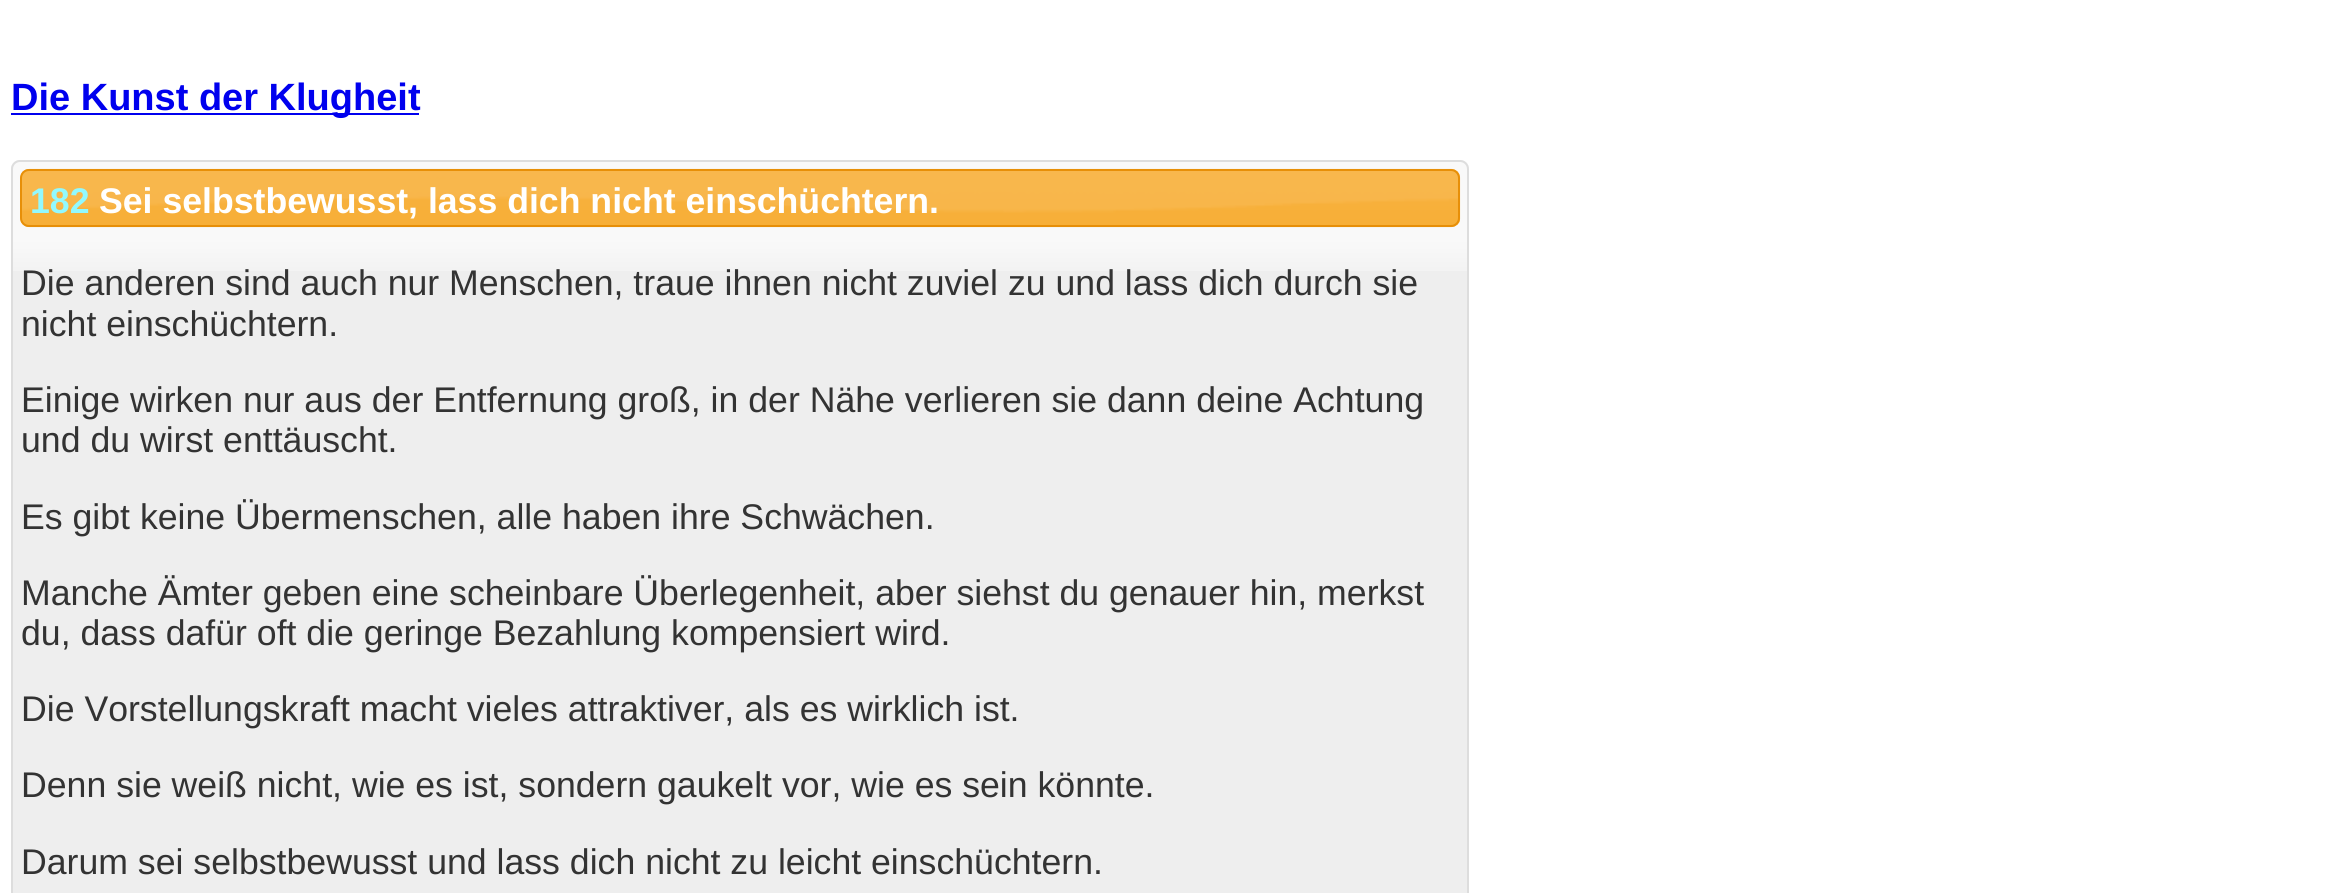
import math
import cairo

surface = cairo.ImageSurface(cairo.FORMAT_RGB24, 2346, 893)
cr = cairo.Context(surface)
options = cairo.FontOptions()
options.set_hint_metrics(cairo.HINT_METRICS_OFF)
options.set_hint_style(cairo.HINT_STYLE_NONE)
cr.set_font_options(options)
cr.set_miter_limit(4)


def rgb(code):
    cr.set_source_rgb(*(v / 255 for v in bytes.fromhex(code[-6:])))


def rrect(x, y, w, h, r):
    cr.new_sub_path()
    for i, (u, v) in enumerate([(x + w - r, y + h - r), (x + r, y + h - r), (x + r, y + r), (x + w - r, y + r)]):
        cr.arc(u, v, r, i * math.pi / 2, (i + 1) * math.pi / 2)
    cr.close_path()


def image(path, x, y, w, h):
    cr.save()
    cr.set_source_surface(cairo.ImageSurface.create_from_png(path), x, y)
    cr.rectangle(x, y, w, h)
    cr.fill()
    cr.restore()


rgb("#ffffff")
cr.paint()
rgb("#0000ee")
cr.rectangle(11, 113, 408, 2)
cr.fill()
rgb("#eeeeee")
rrect(11, 160, 1458, 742, 9)
cr.fill()
image("img/1.png", 11, 162, 1458, 109)
rrect(12, 161, 1456, 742, 8)
rgb("#dddddd")
cr.stroke()
image("img/2.png", 20, 168, 1441, 60)
rrect(21, 170, 1438, 56, 8)
rgb("#e78f08")
cr.stroke()
cr.select_font_face("Liberation Sans", cairo.FONT_SLANT_NORMAL, cairo.FONT_WEIGHT_BOLD)
cr.set_font_size(38)
rgb("#0000ee")
cr.move_to(11, 110)
cr.show_text("Die Kunst der Klugheit")
cr.set_font_size(35.65)
rgb("#92f9fe")
cr.move_to(30, 213)
cr.show_text("182")
rgb("#ffffff")
cr.move_to(99, 213)
cr.show_text("Sei selbstbewusst, lass dich nicht einschüchtern.")
cr.select_font_face("Liberation Sans")
rgb("#333333")
for x, y, s in [
    (21, 295, "Die anderen sind auch nur Menschen, traue ihnen nicht zuviel zu und lass dich durch sie"),
    (21, 336, "nicht einschüchtern."),
    (21, 412, "Einige wirken nur aus der Entfernung groß, in der Nähe verlieren sie dann deine Achtung"),
    (21, 452, "und du wirst enttäuscht."),
    (21, 529, "Es gibt keine Übermenschen, alle haben ihre Schwächen."),
    (21, 605, "Manche Ämter geben eine scheinbare Überlegenheit, aber siehst du genauer hin, merkst"),
    (21, 645, "du, dass dafür oft die geringe Bezahlung kompensiert wird."),
    (21, 721, "Die Vorstellungskraft macht vieles attraktiver, als es wirklich ist."),
    (21, 797, "Denn sie weiß nicht, wie es ist, sondern gaukelt vor, wie es sein könnte."),
    (21, 874, "Darum sei selbstbewusst und lass dich nicht zu leicht einschüchtern."),
]:
    cr.move_to(x, y)
    cr.show_text(s)
surface.write_to_png("page.png")
